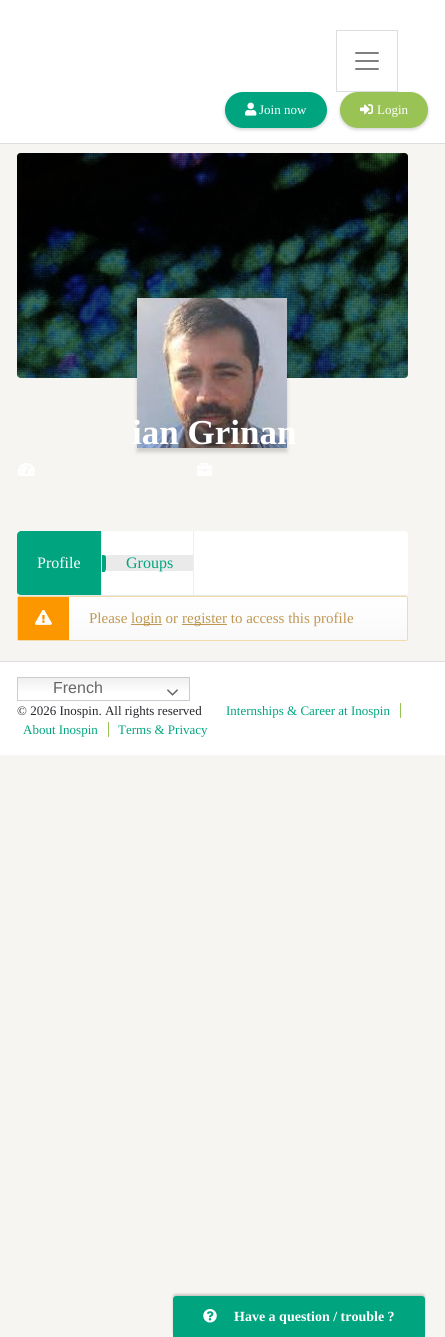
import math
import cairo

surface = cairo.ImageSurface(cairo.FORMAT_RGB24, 445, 1337)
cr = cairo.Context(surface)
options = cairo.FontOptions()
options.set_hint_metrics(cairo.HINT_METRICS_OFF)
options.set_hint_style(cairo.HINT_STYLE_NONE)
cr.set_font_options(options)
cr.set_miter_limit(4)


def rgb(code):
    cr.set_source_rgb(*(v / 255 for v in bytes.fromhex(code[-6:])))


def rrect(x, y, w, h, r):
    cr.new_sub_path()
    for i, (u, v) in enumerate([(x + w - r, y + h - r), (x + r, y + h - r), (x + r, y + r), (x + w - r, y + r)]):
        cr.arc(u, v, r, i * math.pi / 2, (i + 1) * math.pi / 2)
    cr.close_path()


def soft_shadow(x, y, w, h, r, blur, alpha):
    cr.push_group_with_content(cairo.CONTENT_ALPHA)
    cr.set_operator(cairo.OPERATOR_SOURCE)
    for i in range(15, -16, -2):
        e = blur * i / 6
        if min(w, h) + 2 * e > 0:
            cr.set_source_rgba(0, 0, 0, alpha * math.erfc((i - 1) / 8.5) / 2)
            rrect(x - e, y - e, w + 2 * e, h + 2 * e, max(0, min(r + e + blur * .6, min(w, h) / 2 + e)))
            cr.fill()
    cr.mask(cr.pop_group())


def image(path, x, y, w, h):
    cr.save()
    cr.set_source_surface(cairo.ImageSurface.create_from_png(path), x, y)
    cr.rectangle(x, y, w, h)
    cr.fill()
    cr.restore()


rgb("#f6f5f2")
cr.paint()
rgb("#ffffff")
cr.rectangle(0, 0, 445, 143)
cr.fill()
rgb("#dddddd")
cr.rectangle(0, 143, 445, 1)
cr.fill()
rgb("#000000")
soft_shadow(340, 94, 88, 36, 18, 2, 0.12)
soft_shadow(340, 93, 88, 36, 18, 1.5, 0.08)
cr.rectangle(336.5, 30.5, 61, 61)
rgb("#dddddd")
cr.set_line_width(1)
cr.stroke()
image("img/1.png", 355, 52, 24, 18)
rgb("#000000")
soft_shadow(225, 94, 102, 36, 18, 2, 0.12)
soft_shadow(225, 93, 102, 36, 18, 1.5, 0.08)
rgb("#00a57f")
rrect(225, 92, 102, 36, 18)
cr.fill()
image("img/2.png", 245, 102, 12, 14)
rgb("#9ac355")
rrect(340, 92, 88, 36, 18)
cr.fill()
image("img/3.png", 360, 104, 13, 11)
image("img/4.png", 17, 153, 391, 225)
cr.set_source_rgba(0, 0, 0, 0.55)
rrect(17, 153, 391, 225, 4)
cr.fill()
rgb("#000000")
soft_shadow(137, 302, 150, 150, 0, 2, 0.17)
image("img/5.png", 137, 298, 150, 150)
image("img/6.png", 18, 463, 17, 13)
image("img/7.png", 197, 463, 15, 13)
rgb("#ffffff")
rrect(17, 531, 391, 65, 4)
cr.fill()
rgb("#e8e8e8")
cr.rectangle(19, 595, 387, 1)
cr.fill()
rgb("#00a57f")
cr.new_path()
cr.move_to(102, 555)
cr.curve_to(106, 555, 106, 555.5, 106, 559)
cr.line_to(106, 568)
cr.curve_to(106, 571.5, 105.5, 571, 102, 571)
cr.close_path()
cr.fill()
cr.rectangle(102, 571, 3, 1)
cr.fill()
cr.new_path()
cr.move_to(21, 531)
cr.curve_to(19, 531, 17, 533, 17, 535)
cr.line_to(17, 592)
cr.curve_to(17, 594, 19, 595, 21, 595)
cr.line_to(102, 595)
cr.line_to(102, 531)
cr.close_path()
cr.fill()
rgb("#eeeeee")
cr.rectangle(101, 531, 1, 64)
cr.fill()
rgb("#eaeaea")
rrect(106, 555, 88, 16, 2)
cr.fill()
rgb("#eeeeee")
cr.rectangle(193, 531, 1, 64)
cr.fill()
gradient = cairo.LinearGradient(213, 597, 213, 640)
gradient.add_color_stop_rgba(0, 1, 1, 1, 1)
gradient.add_color_stop_rgba(1, 0.976, 0.976, 0.976, 1)
cr.set_source(gradient)
rrect(18, 597, 389, 43, 1)
cr.fill()
rrect(17.5, 596.5, 390, 44, 1.5)
rgb("#f1daab")
cr.stroke()
rgb("#fc9700")
cr.rectangle(18, 597, 51, 43)
cr.fill()
image("img/8.png", 35, 609, 17, 16)
for x, y, w, h, color in [
    (131, 624, 31, 1, "#c09853"),
    (182, 624, 45, 1, "#c09853"),
    (0, 662, 445, 93, "#ffffff"),
    (0, 661, 445, 1, "#dddddd"),
]:
    rgb(color)
    cr.rectangle(x, y, w, h)
    cr.fill()
gradient = cairo.LinearGradient(104, 677, 104, 701)
gradient.add_color_stop_rgba(0, 0.937, 0.937, 0.937, 1)
gradient.add_color_stop_rgba(0.7, 1, 1, 1, 1)
cr.set_source(gradient)
cr.rectangle(18, 678, 171, 13)
cr.fill()
cr.rectangle(17.5, 677.5, 172, 23)
rgb("#cccccc")
cr.stroke()
image("img/9.png", 167, 689, 11, 7)
rgb("#9ac355")
cr.rectangle(400, 703, 1, 15)
cr.fill()
cr.rectangle(108, 722, 1, 15)
cr.fill()
rgb("#000000")
soft_shadow(173, 1294, 252, 41, 3, 1, 0.18)
rgb("#00a57f")
cr.new_path()
cr.move_to(176, 1296)
cr.line_to(422, 1296)
cr.curve_to(423.5, 1296, 425, 1297.5, 425, 1299)
cr.line_to(425, 1337)
cr.line_to(173, 1337)
cr.line_to(173, 1299)
cr.curve_to(173, 1297.5, 174.5, 1296, 176, 1296)
cr.close_path()
cr.fill()
image("img/10.png", 203, 1309, 14, 14)
cr.select_font_face("Liberation Serif")
cr.set_font_size(13)
rgb("#ffffff")
cr.move_to(259, 114)
cr.show_text("Join now")
cr.move_to(377, 114)
cr.show_text("Login")
cr.select_font_face("Liberation Serif", cairo.FONT_SLANT_NORMAL, cairo.FONT_WEIGHT_BOLD)
cr.set_font_size(35)
cr.move_to(132, 444)
cr.show_text("ian Grinan")
cr.select_font_face("Liberation Serif")
cr.set_font_size(16)
cr.move_to(37, 568)
cr.show_text("Profile")
rgb("#00a57f")
cr.move_to(126, 568)
cr.show_text("Groups")
cr.set_font_size(15)
rgb("#c09853")
for x, y, s in [
    (89, 623, "Please"),
    (131, 623, "login or"),
    (182, 623, "register to access this profile"),
]:
    cr.move_to(x, y)
    cr.show_text(s)
cr.select_font_face("Liberation Sans")
cr.set_font_size(16)
rgb("#666666")
cr.move_to(53, 693)
cr.show_text("French")
cr.select_font_face("Liberation Serif")
cr.set_font_size(13)
rgb("#26282d")
cr.move_to(17, 715)
cr.show_text("© 2026 Inospin. All rights reserved")
rgb("#00a57f")
for x, y, s in [
    (226, 715, "Internships & Career at Inospin"),
    (23, 734, "About Inospin"),
    (118, 734, "Terms & Privacy"),
]:
    cr.move_to(x, y)
    cr.show_text(s)
cr.select_font_face("Liberation Serif", cairo.FONT_SLANT_NORMAL, cairo.FONT_WEIGHT_BOLD)
cr.set_font_size(14)
rgb("#ffffff")
cr.move_to(234, 1321)
cr.show_text("Have a question / trouble ?")
surface.write_to_png("page.png")
